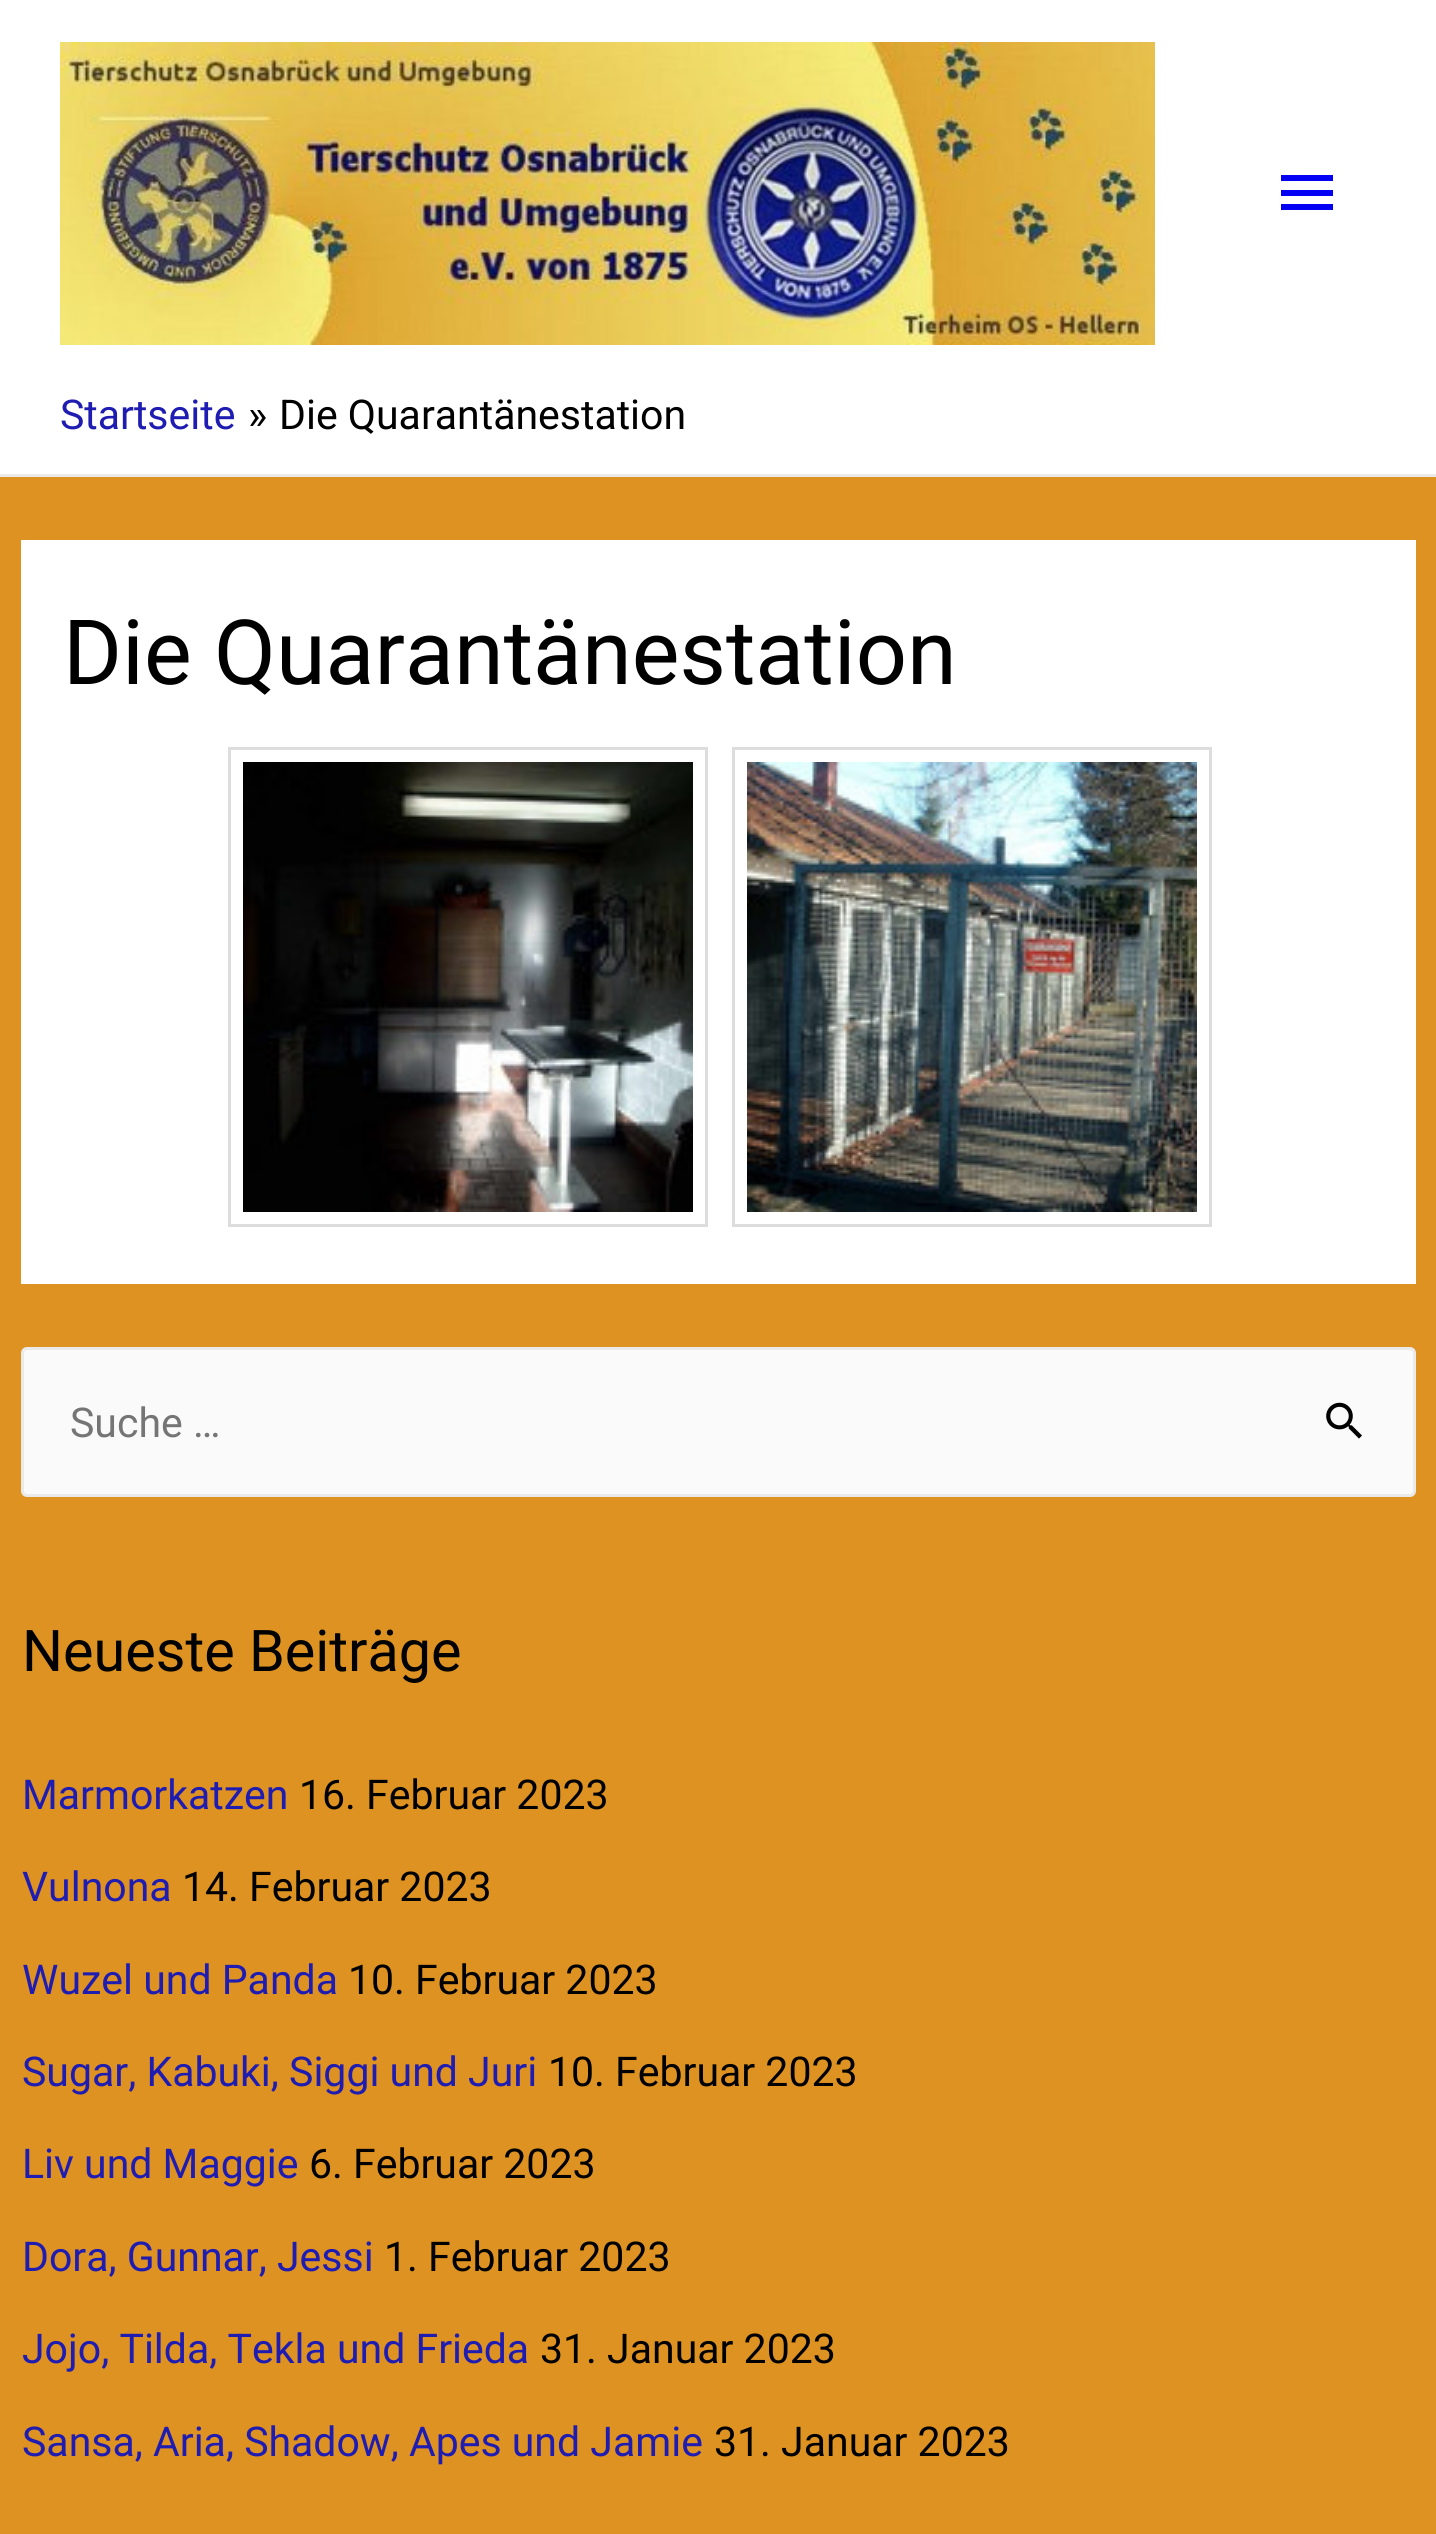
import math
import cairo

surface = cairo.ImageSurface(cairo.FORMAT_RGB24, 1436, 2534)
cr = cairo.Context(surface)
options = cairo.FontOptions()
options.set_hint_metrics(cairo.HINT_METRICS_OFF)
options.set_hint_style(cairo.HINT_STYLE_NONE)
cr.set_font_options(options)
cr.set_miter_limit(4)


def rgb(code):
    cr.set_source_rgb(*(v / 255 for v in bytes.fromhex(code[-6:])))


def rrect(x, y, w, h, r):
    cr.new_sub_path()
    for i, (u, v) in enumerate([(x + w - r, y + h - r), (x + r, y + h - r), (x + r, y + r), (x + w - r, y + r)]):
        cr.arc(u, v, r, i * math.pi / 2, (i + 1) * math.pi / 2)
    cr.close_path()


def image(path, x, y, w, h):
    cr.save()
    cr.set_source_surface(cairo.ImageSurface.create_from_png(path), x, y)
    cr.rectangle(x, y, w, h)
    cr.fill()
    cr.restore()


rgb("#dd9221")
cr.paint()
rgb("#ffffff")
cr.rectangle(0, 0, 1436, 474)
cr.fill()
rgb("#eaeaea")
cr.rectangle(0, 474, 1436, 3)
cr.fill()
image("img/1.png", 60, 42, 1095, 303)
rgb("#0400f4")
cr.new_path()
cr.move_to(1281, 175)
cr.line_to(1333, 175)
cr.line_to(1333, 181)
cr.line_to(1281, 181)
cr.close_path()
cr.move_to(1281, 196)
cr.line_to(1281, 190)
cr.line_to(1333, 190)
cr.line_to(1333, 196)
cr.close_path()
cr.move_to(1281, 210)
cr.line_to(1281, 204)
cr.line_to(1333, 204)
cr.line_to(1333, 210)
cr.close_path()
cr.fill()
rgb("#ffffff")
cr.rectangle(21, 540, 1395, 744)
cr.fill()
cr.rectangle(229.5, 748.5, 477, 477)
rgb("#dddddd")
cr.set_line_width(3)
cr.stroke()
image("img/2.png", 243, 762, 450, 450)
cr.rectangle(733.5, 748.5, 477, 477)
cr.stroke()
image("img/3.png", 747, 762, 450, 450)
rgb("#fafafa")
rrect(22.5, 1348.5, 1392, 147, 4.5)
cr.fill_preserve()
rgb("#eaeaea")
cr.stroke()
image("img/4.png", 1326, 1402, 36, 37)
cr.select_font_face("Roboto")
cr.set_font_size(41)
rgb("#1f1cb2")
cr.move_to(60, 429)
cr.show_text("Startseite")
rgb("#000000")
cr.move_to(248, 429)
cr.show_text("»")
cr.move_to(279, 429)
cr.show_text("Die Quarantänestation")
cr.set_font_size(90)
cr.move_to(63, 684)
cr.show_text("Die Quarantänestation")
cr.set_font_size(41)
rgb("#757575")
cr.move_to(70, 1437)
cr.show_text("Suche …")
cr.set_font_size(57.5)
rgb("#000000")
cr.move_to(22, 1671)
cr.show_text("Neueste Beiträge")
cr.set_font_size(41)
rgb("#1f1cb2")
cr.move_to(22, 1809)
cr.show_text("Marmorkatzen")
rgb("#000000")
cr.move_to(299, 1809)
cr.show_text("16. Februar 2023")
rgb("#1f1cb2")
cr.move_to(22, 1901)
cr.show_text("Vulnona")
rgb("#000000")
cr.move_to(182, 1901)
cr.show_text("14. Februar 2023")
rgb("#1f1cb2")
cr.move_to(22, 1994)
cr.show_text("Wuzel und Panda")
rgb("#000000")
cr.move_to(348, 1994)
cr.show_text("10. Februar 2023")
rgb("#1f1cb2")
cr.move_to(22, 2086)
cr.show_text("Sugar, Kabuki, Siggi und Juri")
rgb("#000000")
cr.move_to(548, 2086)
cr.show_text("10. Februar 2023")
rgb("#1f1cb2")
cr.move_to(22, 2178)
cr.show_text("Liv und Maggie")
rgb("#000000")
cr.move_to(309, 2178)
cr.show_text("6. Februar 2023")
rgb("#1f1cb2")
cr.move_to(22, 2271)
cr.show_text("Dora, Gunnar, Jessi")
rgb("#000000")
cr.move_to(384, 2271)
cr.show_text("1. Februar 2023")
rgb("#1f1cb2")
cr.move_to(22, 2363)
cr.show_text("Jojo, Tilda, Tekla und Frieda")
rgb("#000000")
cr.move_to(540, 2363)
cr.show_text("31. Januar 2023")
rgb("#1f1cb2")
cr.move_to(22, 2456)
cr.show_text("Sansa, Aria, Shadow, Apes und Jamie")
rgb("#000000")
cr.move_to(714, 2456)
cr.show_text("31. Januar 2023")
surface.write_to_png("page.png")
